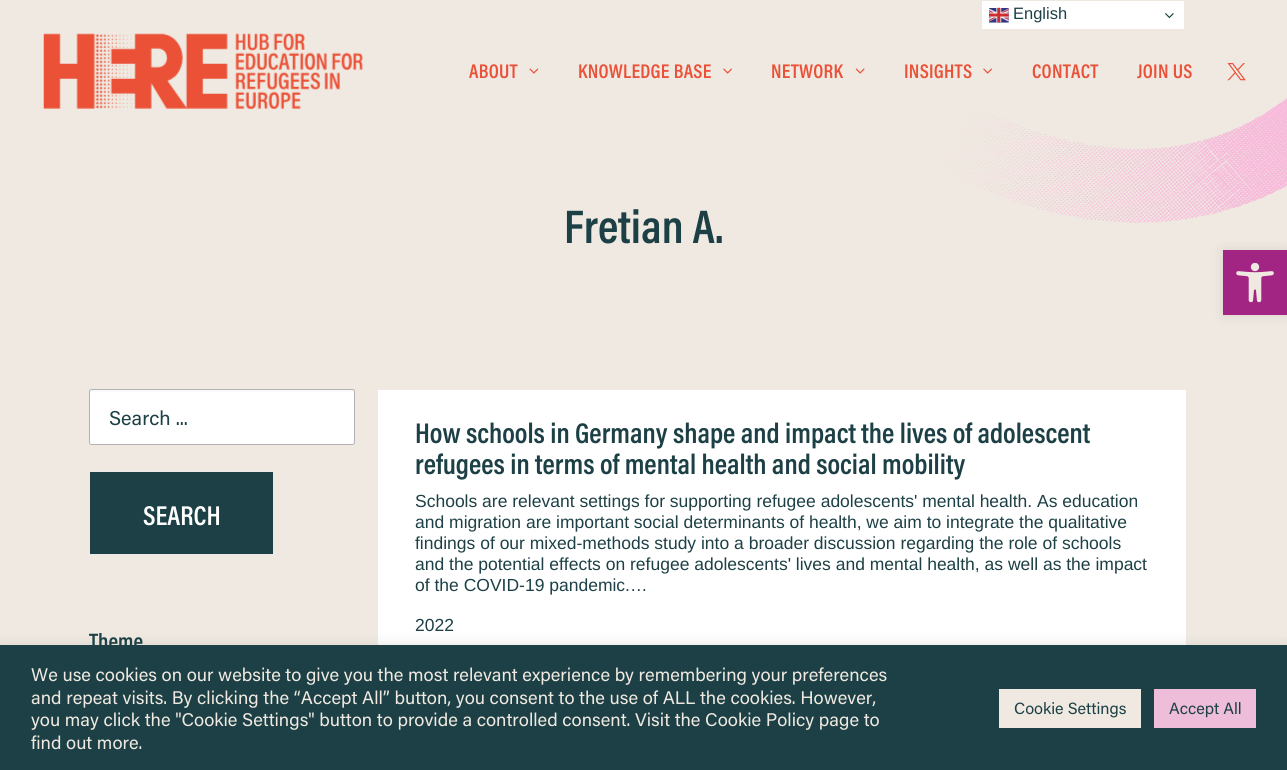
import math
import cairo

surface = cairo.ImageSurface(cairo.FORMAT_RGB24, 1287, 770)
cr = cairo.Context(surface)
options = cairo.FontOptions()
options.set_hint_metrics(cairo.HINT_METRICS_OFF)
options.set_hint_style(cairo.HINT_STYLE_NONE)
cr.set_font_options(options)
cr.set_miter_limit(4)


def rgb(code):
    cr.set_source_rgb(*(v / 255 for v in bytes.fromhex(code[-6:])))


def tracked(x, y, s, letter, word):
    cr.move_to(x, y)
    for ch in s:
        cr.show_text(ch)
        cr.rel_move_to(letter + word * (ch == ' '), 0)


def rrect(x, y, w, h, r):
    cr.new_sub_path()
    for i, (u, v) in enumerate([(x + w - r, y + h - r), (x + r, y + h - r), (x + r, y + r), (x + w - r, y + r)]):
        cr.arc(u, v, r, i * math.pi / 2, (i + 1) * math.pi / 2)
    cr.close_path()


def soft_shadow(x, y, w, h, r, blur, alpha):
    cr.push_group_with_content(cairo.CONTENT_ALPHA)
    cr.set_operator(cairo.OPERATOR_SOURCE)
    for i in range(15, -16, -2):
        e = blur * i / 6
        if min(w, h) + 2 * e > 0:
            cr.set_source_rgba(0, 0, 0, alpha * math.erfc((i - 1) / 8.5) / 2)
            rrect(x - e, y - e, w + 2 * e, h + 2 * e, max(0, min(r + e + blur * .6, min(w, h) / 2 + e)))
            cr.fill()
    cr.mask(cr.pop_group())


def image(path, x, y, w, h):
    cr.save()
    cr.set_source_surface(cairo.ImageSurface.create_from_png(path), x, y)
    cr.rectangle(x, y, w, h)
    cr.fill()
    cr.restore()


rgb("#efe9e1")
cr.paint()
rgb("#ffffff")
cr.rectangle(982, 1, 202, 28)
cr.fill()
image("img/1.png", 989, 7, 20, 16)
image("img/2.png", 1165, 13, 9, 6)
image("img/3.png", 43, 33, 320, 76)
image("img/4.png", 529, 68, 10, 6)
image("img/5.png", 723, 68, 10, 6)
image("img/6.png", 855, 68, 10, 6)
image("img/5.png", 983, 68, 10, 6)
image("img/7.png", 1227, 63, 19, 18)
image("img/8.png", 934, 97, 353, 126)
rrect(89, 389, 266, 56, 2.5)
cr.fill()
rgb("#f9f9f9")
cr.new_path()
cr.move_to(91, 392)
cr.line_to(352, 392)
cr.curve_to(353, 392, 354, 393, 354, 394)
cr.curve_to(354, 393, 355, 390, 353, 390)
cr.line_to(91, 390)
cr.curve_to(89, 390, 90, 393, 90, 394)
cr.close_path()
cr.fill()
rrect(89.5, 389.5, 265, 55, 2)
cr.set_source_rgba(0, 0, 0, 0.3)
cr.set_line_width(1)
cr.stroke()
rgb("#1c4045")
cr.rectangle(89.5, 471.5, 184, 83)
cr.fill_preserve()
rgb("#eaeaea")
cr.stroke()
rgb("#ffffff")
cr.rectangle(378, 390, 808, 255)
cr.fill()
rgb("#000000")
soft_shadow(1223, 250, 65, 65, 0, 6, 0.1)
rgb("#a32583")
cr.rectangle(1223, 250, 64, 65)
cr.fill()
image("img/9.png", 1236, 263, 38, 40)
rgb("#acabab")
soft_shadow(0, 644, 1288, 125, 0, 6, 0.3)
for x, y, w, h, color in [
    (0, 645, 1287, 125, "#1c4045"),
    (999, 689, 142, 39, "#efe9e1"),
    (1154, 689, 102, 39, "#edbdd9"),
]:
    rgb(color)
    cr.rectangle(x, y, w, h)
    cr.fill()
cr.select_font_face("Liberation Sans")
cr.set_font_size(16.5)
rgb("#1c4045")
cr.move_to(1013, 19)
cr.show_text("English")
cr.select_font_face("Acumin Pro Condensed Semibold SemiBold")
cr.set_font_size(20)
rgb("#eb5138")
for x, y, s in [
    (469, 78, "ABOUT"),
    (578, 78, "KNOWLEDGE BASE"),
    (771, 78, "NETWORK"),
    (904, 78, "INSIGHTS"),
    (1032, 78, "CONTACT"),
    (1137, 78, "JOIN US"),
]:
    tracked(x, y, s, 0.25, 0)
cr.set_font_size(47.5)
rgb("#1c4045")
cr.move_to(564, 243)
cr.show_text("Fretian A.")
cr.select_font_face("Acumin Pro")
cr.set_font_size(20)
cr.move_to(109, 425)
cr.show_text("Search ...")
cr.select_font_face("Acumin Pro Condensed Semibold SemiBold")
cr.set_font_size(27.5)
rgb("#ffffff")
cr.move_to(143, 525)
cr.show_text("SEARCH")
cr.set_font_size(22.5)
rgb("#1c4045")
cr.move_to(89, 649)
cr.show_text("Theme")
cr.set_font_size(28.75)
cr.move_to(415, 443)
cr.show_text("How schools in Germany shape and impact the lives of adolescent")
cr.move_to(415, 474)
cr.show_text("refugees in terms of mental health and social mobility")
cr.select_font_face("Liberation Sans")
cr.set_font_size(17.5)
for x, y, s in [
    (415, 507, "Schools are relevant settings for supporting refugee adolescents' mental health. As education"),
    (415, 528, "and migration are important social determinants of health, we aim to integrate the qualitative"),
    (415, 549, "findings of our mixed-methods study into a broader discussion regarding the role of schools"),
    (415, 570, "and the potential effects on refugee adolescents' lives and mental health, as well as the impact"),
    (415, 591, "of the COVID-19 pandemic.…"),
    (415, 631, "2022"),
]:
    cr.move_to(x, y)
    cr.show_text(s)
cr.select_font_face("Acumin Pro")
cr.set_font_size(18.35)
rgb("#efe9e1")
for x, y, s in [
    (31, 681, "We use cookies on our website to give you the most relevant experience by remembering your preferences"),
    (31, 704, "and repeat visits. By clicking the “Accept All” button, you consent to the use of ALL the cookies. However,"),
    (31, 726, "you may click the \"Cookie Settings\" button to provide a controlled consent. Visit the Cookie Policy page to"),
    (31, 749, "find out more."),
]:
    cr.move_to(x, y)
    cr.show_text(s)
cr.set_font_size(16.25)
rgb("#1c4045")
cr.move_to(1014, 714)
cr.show_text("Cookie Settings")
cr.move_to(1169, 714)
cr.show_text("Accept All")
surface.write_to_png("page.png")
